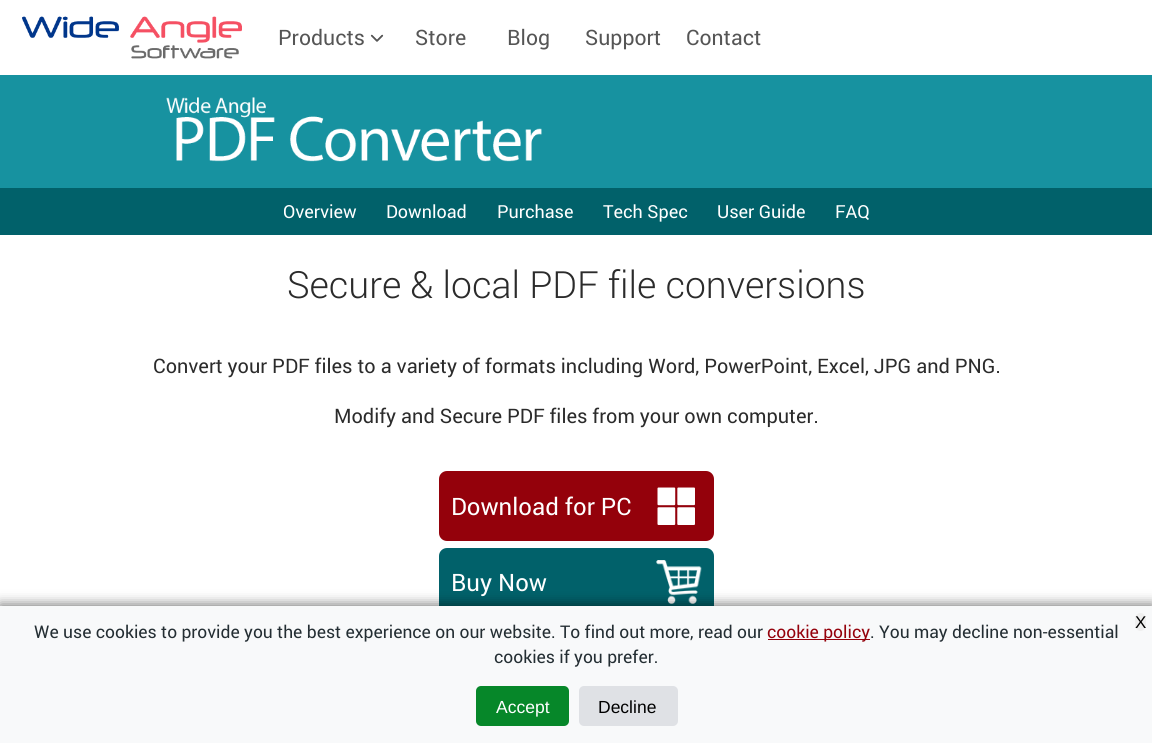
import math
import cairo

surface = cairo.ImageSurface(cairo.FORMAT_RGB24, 1152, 743)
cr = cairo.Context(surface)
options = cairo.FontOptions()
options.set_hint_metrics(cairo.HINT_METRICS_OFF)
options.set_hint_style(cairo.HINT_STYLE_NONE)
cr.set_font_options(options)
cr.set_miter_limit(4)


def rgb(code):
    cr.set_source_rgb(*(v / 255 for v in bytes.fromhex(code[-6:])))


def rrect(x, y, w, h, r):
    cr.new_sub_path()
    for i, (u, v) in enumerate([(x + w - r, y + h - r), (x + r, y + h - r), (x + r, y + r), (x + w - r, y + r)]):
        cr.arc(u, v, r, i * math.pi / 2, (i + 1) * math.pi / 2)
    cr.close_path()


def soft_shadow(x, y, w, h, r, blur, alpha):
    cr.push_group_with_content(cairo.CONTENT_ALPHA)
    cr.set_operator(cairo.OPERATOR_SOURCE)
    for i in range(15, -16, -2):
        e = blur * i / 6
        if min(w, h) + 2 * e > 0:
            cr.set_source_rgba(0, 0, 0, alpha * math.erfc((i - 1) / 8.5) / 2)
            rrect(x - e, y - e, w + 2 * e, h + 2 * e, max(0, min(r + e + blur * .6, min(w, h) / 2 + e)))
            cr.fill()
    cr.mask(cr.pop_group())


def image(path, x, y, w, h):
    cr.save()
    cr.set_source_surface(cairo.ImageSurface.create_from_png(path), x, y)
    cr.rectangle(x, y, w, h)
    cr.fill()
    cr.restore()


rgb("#ffffff")
cr.paint()
image("img/1.png", 22, 16, 220, 43)
image("img/2.png", 370, 34, 14, 8)
rgb("#1792a0")
cr.rectangle(0, 75, 1152, 113)
cr.fill()
image("img/3.png", 166, 97, 376, 65)
rgb("#01616a")
cr.rectangle(0, 188, 1152, 47)
cr.fill()
rgb("#94010b")
rrect(439, 471, 275, 70, 8)
cr.fill()
image("img/4.png", 657, 487, 38, 38)
rgb("#01616a")
rrect(439, 548, 275, 70, 8)
cr.fill()
image("img/5.png", 656, 560, 46, 44)
rgb("#000000")
soft_shadow(0, 604, 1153, 137, 0, 6, 0.5)
rgb("#f8f9fa")
cr.rectangle(0, 606, 1152, 137)
cr.fill()
rgb("#efefef")
rrect(1135, 613, 11, 18, 5.5)
cr.fill()
rgb("#94010b")
cr.rectangle(768, 639, 102, 1)
cr.fill()
rgb("#068729")
rrect(476, 686, 93, 40, 5)
cr.fill()
rgb("#dfe1e5")
rrect(579, 686, 99, 40, 5)
cr.fill()
cr.select_font_face("Roboto")
cr.set_font_size(21.25)
rgb("#555555")
for x, y, s in [
    (278, 45, "Products"),
    (415, 45, "Store"),
    (507, 45, "Blog"),
    (585, 45, "Support"),
    (686, 45, "Contact"),
]:
    cr.move_to(x, y)
    cr.show_text(s)
cr.set_font_size(18)
rgb("#ffffff")
for x, y, s in [
    (283, 218, "Overview"),
    (386, 218, "Download"),
    (497, 218, "Purchase"),
    (603, 218, "Tech Spec"),
    (717, 218, "User Guide"),
    (835, 218, "FAQ"),
]:
    cr.move_to(x, y)
    cr.show_text(s)
cr.select_font_face("Roboto Light")
cr.set_font_size(37.5)
rgb("#2b2b2b")
cr.move_to(287, 298)
cr.show_text("Secure & local PDF file conversions")
cr.select_font_face("Roboto")
cr.set_font_size(19.95)
cr.move_to(153, 373)
cr.show_text("Convert your PDF files to a variety of formats including Word, PowerPoint, Excel, JPG and PNG.")
cr.move_to(334, 423)
cr.show_text("Modify and Secure PDF files from your own computer.")
cr.set_font_size(24)
rgb("#ffffff")
cr.move_to(451, 515)
cr.show_text("Download for PC")
cr.move_to(451, 591)
cr.show_text("Buy Now")
cr.select_font_face("Liberation Sans")
cr.set_font_size(17)
rgb("#000000")
cr.move_to(1135, 628)
cr.show_text("X")
cr.select_font_face("Roboto")
cr.set_font_size(17.5)
rgb("#242e33")
cr.move_to(34, 638)
cr.show_text("We use cookies to provide you the best experience on our website. To find out more, read our")
rgb("#94010b")
cr.move_to(767, 638)
cr.show_text("cookie policy")
rgb("#242e33")
cr.move_to(870, 638)
cr.show_text(". You may decline non-essential")
cr.move_to(494, 663)
cr.show_text("cookies if you prefer.")
cr.select_font_face("Liberation Sans")
rgb("#ffffff")
cr.move_to(496, 713)
cr.show_text("Accept")
rgb("#000000")
cr.move_to(598, 713)
cr.show_text("Decline")
surface.write_to_png("page.png")
